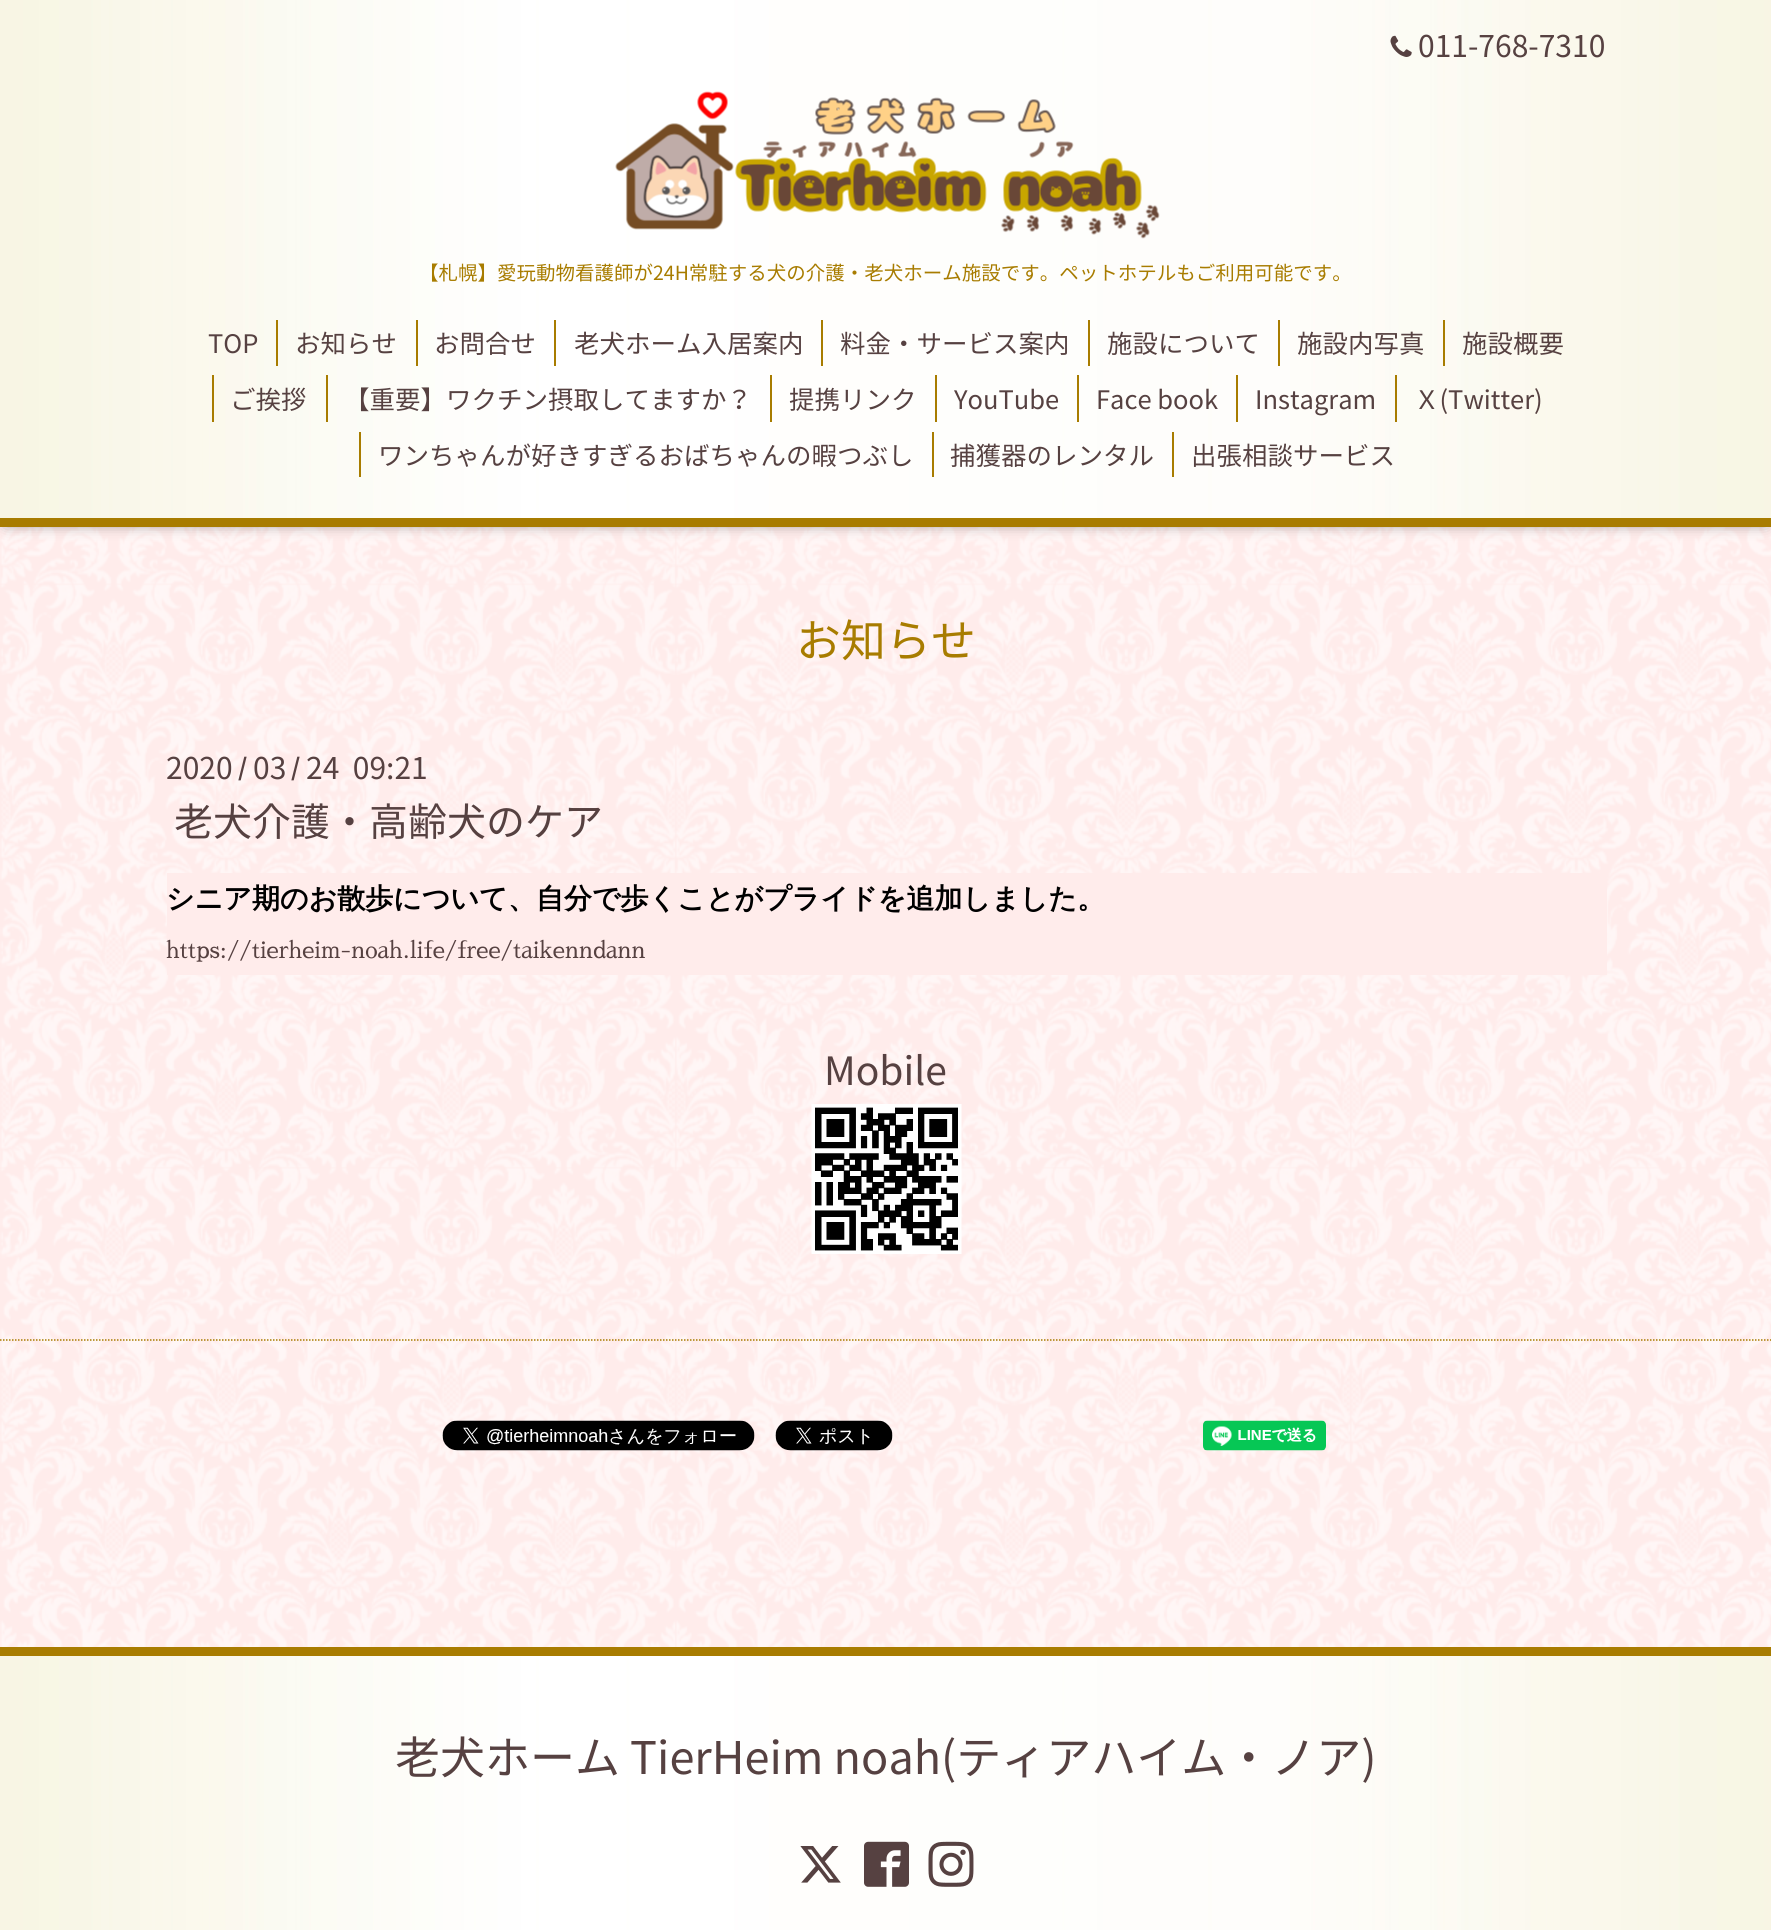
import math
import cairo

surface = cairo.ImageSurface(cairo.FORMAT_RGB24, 1771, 1930)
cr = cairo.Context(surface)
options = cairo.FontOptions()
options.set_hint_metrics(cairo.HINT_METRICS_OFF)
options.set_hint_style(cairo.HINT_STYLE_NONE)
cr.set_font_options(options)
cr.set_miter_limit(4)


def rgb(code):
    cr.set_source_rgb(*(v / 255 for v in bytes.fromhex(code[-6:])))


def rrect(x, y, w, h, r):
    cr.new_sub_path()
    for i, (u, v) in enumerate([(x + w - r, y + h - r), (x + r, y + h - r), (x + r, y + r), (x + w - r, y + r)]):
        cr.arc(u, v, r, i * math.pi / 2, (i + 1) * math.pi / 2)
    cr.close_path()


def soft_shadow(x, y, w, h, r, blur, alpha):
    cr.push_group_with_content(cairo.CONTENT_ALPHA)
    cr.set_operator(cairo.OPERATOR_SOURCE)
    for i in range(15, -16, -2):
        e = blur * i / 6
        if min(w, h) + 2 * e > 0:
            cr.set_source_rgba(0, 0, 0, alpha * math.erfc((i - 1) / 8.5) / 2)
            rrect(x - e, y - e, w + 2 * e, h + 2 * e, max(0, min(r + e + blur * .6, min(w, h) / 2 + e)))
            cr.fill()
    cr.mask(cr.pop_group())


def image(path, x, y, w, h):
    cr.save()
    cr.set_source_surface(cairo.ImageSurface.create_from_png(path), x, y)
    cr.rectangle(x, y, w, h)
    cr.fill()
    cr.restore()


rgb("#ffeceb")
cr.paint()
image("img/1.png", 0, 527, 1771, 1120)
rgb("#000000")
soft_shadow(6, 8, 1760, 514, 0, 7.5, 0.6)
image("img/2.png", 0, 0, 1771, 518)
rgb("#a87c00")
cr.rectangle(0, 518, 1771, 9)
cr.fill()
image("img/3.png", 1390, 35, 22, 22)
image("img/4.png", 615, 91, 545, 148)
for x, y, w, h, color in [
    (276, 320, 2, 46, "#a87c00"),
    (416, 320, 2, 46, "#a87c00"),
    (554, 320, 2, 46, "#a87c00"),
    (821, 320, 2, 46, "#a87c00"),
    (1088, 320, 2, 46, "#a87c00"),
    (1278, 320, 2, 46, "#a87c00"),
    (1443, 320, 2, 46, "#a87c00"),
    (212, 375, 2, 47, "#a87c00"),
    (326, 375, 2, 47, "#a87c00"),
    (770, 375, 2, 47, "#a87c00"),
    (935, 375, 2, 47, "#a87c00"),
    (1077, 375, 2, 47, "#a87c00"),
    (1236, 375, 2, 47, "#a87c00"),
    (1395, 375, 2, 47, "#a87c00"),
    (359, 432, 2, 45, "#a87c00"),
    (932, 432, 2, 45, "#a87c00"),
    (1172, 432, 2, 45, "#a87c00"),
    (167, 873, 1440, 102, "#ffeceb"),
]:
    rgb(color)
    cr.rectangle(x, y, w, h)
    cr.fill()
image("img/5.png", 811, 1104, 151, 150)
cr.new_path()
cr.move_to(0, 1340)
cr.line_to(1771.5, 1340)
rgb("#a87c00")
cr.set_line_width(1.5)
cr.set_dash([1.5, 1.5])
cr.stroke()
image("img/6.png", 442, 1420, 313, 31)
image("img/7.png", 775, 1420, 118, 31)
image("img/8.png", 1203, 1420, 123, 31)
image("img/9.png", 0, 1656, 1771, 274)
cr.rectangle(0, 1647, 1771, 9)
cr.fill()
image("img/10.png", 800, 1846, 41, 37)
image("img/11.png", 864, 1841, 45, 46)
image("img/12.png", 928, 1841, 46, 46)
cr.select_font_face("Noto Sans JP")
cr.set_font_size(30)
rgb("#564141")
cr.move_to(1418, 57)
cr.show_text("011-768-7310")
cr.set_font_size(19.5)
rgb("#a87c00")
cr.move_to(419, 280)
cr.show_text("【札幌】愛玩動物看護師が24H常駐する犬の介護・老犬ホーム施設です。ペットホテルもご利用可能です。")
cr.set_font_size(25.5)
rgb("#564141")
for x, y, s in [
    (208, 353, "TOP"),
    (295, 353, "お知らせ"),
    (434, 353, "お問合せ"),
    (574, 353, "老犬ホーム入居案内"),
    (840, 353, "料金・サービス案内"),
    (1107, 353, "施設について"),
    (1297, 353, "施設内写真"),
    (1462, 353, "施設概要"),
    (230, 409, "ご挨拶"),
    (344, 409, "【重要】ワクチン摂取してますか？"),
    (789, 409, "提携リンク"),
    (954, 409, "YouTube"),
    (1096, 409, "Face book"),
    (1255, 409, "Instagram"),
    (1414, 409, "Ｘ(Twitter)"),
    (378, 465, "ワンちゃんが好きすぎるおばちゃんの暇つぶし"),
    (950, 465, "捕獲器のレンタル"),
    (1191, 465, "出張相談サービス"),
]:
    cr.move_to(x, y)
    cr.show_text(s)
cr.set_font_size(45)
rgb("#a87c00")
cr.move_to(796, 657)
cr.show_text("お知らせ")
cr.set_font_size(30)
rgb("#564141")
cr.move_to(166, 779)
cr.show_text("2020")
cr.select_font_face("Noto Sans JP", cairo.FONT_SLANT_NORMAL, cairo.FONT_WEIGHT_BOLD)
cr.set_font_size(24)
cr.move_to(238, 776)
cr.show_text("/")
cr.select_font_face("Noto Sans JP")
cr.set_font_size(30)
cr.move_to(253, 779)
cr.show_text("03")
cr.select_font_face("Noto Sans JP", cairo.FONT_SLANT_NORMAL, cairo.FONT_WEIGHT_BOLD)
cr.set_font_size(24)
cr.move_to(291, 776)
cr.show_text("/")
cr.select_font_face("Noto Sans JP")
cr.set_font_size(30)
cr.move_to(306, 779)
cr.show_text("24  09:21")
cr.set_font_size(39)
cr.move_to(174, 836)
cr.show_text("老犬介護・高齢犬のケア")
cr.select_font_face("WenQuanYi Zen Hei", cairo.FONT_SLANT_NORMAL, cairo.FONT_WEIGHT_BOLD)
cr.set_font_size(28)
rgb("#000000")
cr.move_to(166, 908)
cr.show_text("シニア期のお散歩について、自分で歩くことがプライドを追加しました。")
cr.select_font_face("Sawarabi Mincho")
cr.set_font_size(22.5)
rgb("#564141")
cr.move_to(166, 958)
cr.show_text("https://tierheim-noah.life/free/taikenndann")
cr.select_font_face("Noto Sans JP")
cr.set_font_size(39)
cr.move_to(824, 1085)
cr.show_text("Mobile")
cr.set_font_size(45)
cr.move_to(395, 1774)
cr.show_text("老犬ホーム TierHeim noah(ティアハイム・ノア)")
surface.write_to_png("page.png")
